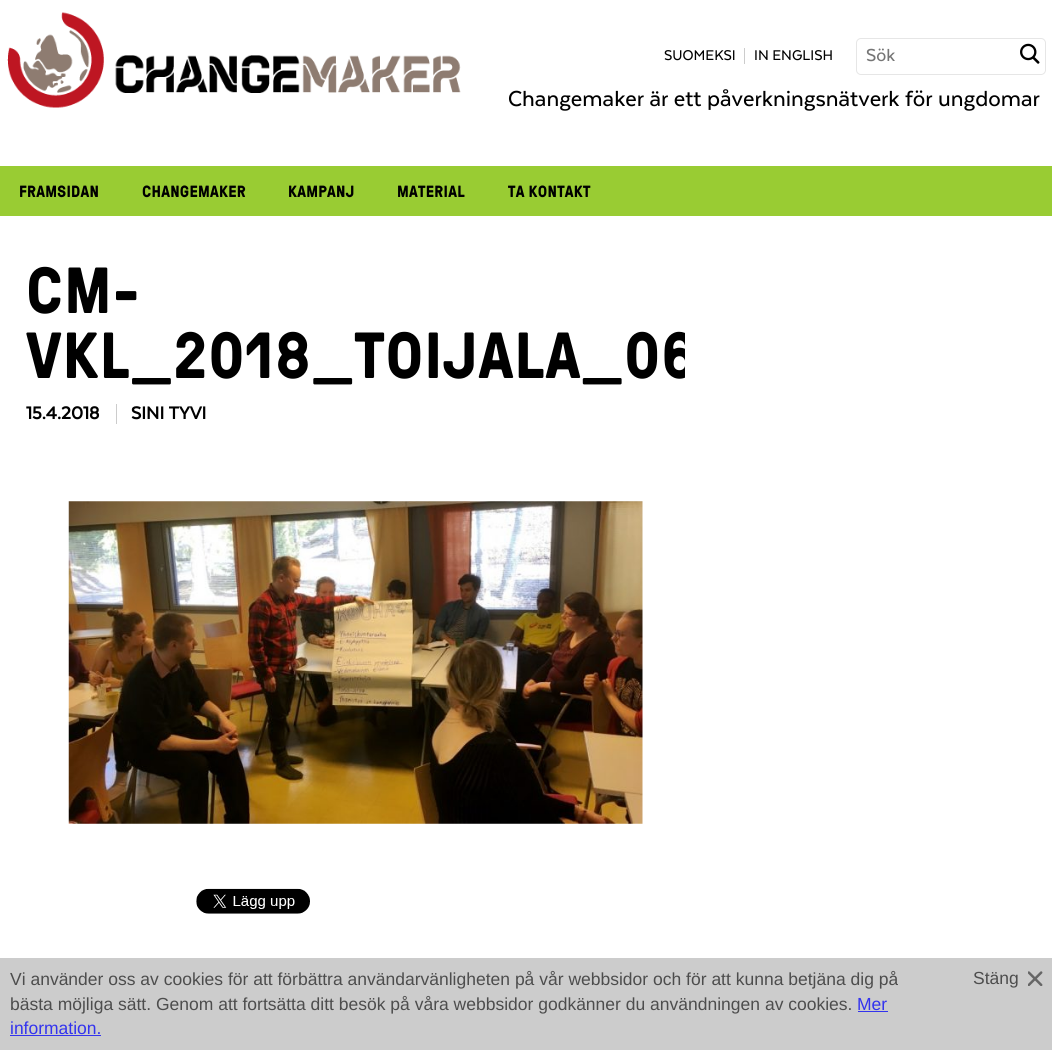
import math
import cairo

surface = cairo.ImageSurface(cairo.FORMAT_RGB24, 1052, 1050)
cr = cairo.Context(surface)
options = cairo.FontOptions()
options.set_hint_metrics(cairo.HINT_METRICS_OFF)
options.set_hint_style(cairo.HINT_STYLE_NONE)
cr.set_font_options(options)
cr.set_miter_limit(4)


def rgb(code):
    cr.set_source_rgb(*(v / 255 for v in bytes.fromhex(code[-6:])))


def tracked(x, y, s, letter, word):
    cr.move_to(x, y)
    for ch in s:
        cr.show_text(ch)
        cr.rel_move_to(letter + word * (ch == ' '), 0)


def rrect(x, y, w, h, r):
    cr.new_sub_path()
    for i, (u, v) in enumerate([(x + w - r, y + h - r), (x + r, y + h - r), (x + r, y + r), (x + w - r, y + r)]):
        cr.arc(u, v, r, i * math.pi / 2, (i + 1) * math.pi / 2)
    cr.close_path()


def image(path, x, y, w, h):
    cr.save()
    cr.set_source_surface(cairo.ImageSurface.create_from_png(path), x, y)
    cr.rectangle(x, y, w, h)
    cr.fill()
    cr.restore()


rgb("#ffffff")
cr.paint()
image("img/1.png", 7, 12, 454, 96)
rgb("#cccccc")
cr.rectangle(744, 48, 1, 16)
cr.fill()
rrect(856.5, 38.5, 189, 36, 4.5)
rgb("#e6e6e6")
cr.set_line_width(1)
cr.stroke()
image("img/2.png", 1020, 43, 20, 21)
rgb("#99cc33")
cr.rectangle(0, 166, 1052, 50)
cr.fill()
rgb("#cccccc")
cr.rectangle(116, 404, 1, 20)
cr.fill()
image("img/3.png", 68, 501, 575, 323)
image("img/4.png", 196, 888, 114, 26)
cr.rectangle(0, 958, 1052, 92)
cr.fill()
image("img/5.png", 1028, 971, 15, 15)
rgb("#3333ee")
cr.rectangle(858, 1011, 30, 1)
cr.fill()
cr.rectangle(10, 1035, 91, 1)
cr.fill()
cr.select_font_face("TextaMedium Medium")
cr.set_font_size(16.25)
rgb("#000000")
cr.move_to(664, 60)
cr.show_text("SUOMEKSI")
cr.move_to(754, 60)
cr.show_text("IN ENGLISH")
cr.set_font_size(20)
rgb("#757575")
cr.move_to(866, 61)
cr.show_text("Sök")
cr.set_font_size(25)
rgb("#000000")
cr.move_to(508, 106)
cr.show_text("Changemaker är ett påverkningsnätverk för ungdomar")
cr.select_font_face("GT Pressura", cairo.FONT_SLANT_NORMAL, cairo.FONT_WEIGHT_BOLD)
cr.set_font_size(16.25)
for x, y, s in [
    (19, 197, "FRAMSIDAN"),
    (142, 197, "CHANGEMAKER"),
    (288, 197, "KAMPANJ"),
    (397, 197, "MATERIAL"),
    (508, 197, "TA KONTAKT"),
]:
    tracked(x, y, s, 0.25, 0)
cr.set_font_size(65)
tracked(26, 313, "CM-", 1.25, 0)
cr.save()
cr.rectangle(26, 216, 659, 768)
cr.clip()
tracked(26, 378, "VKL_2018_TOIJALA_06", 1.25, 0)
cr.restore()
cr.select_font_face("TextaMedium", cairo.FONT_SLANT_NORMAL, cairo.FONT_WEIGHT_BOLD)
cr.set_font_size(20)
cr.move_to(26, 419)
cr.show_text("15.4.2018")
cr.move_to(131, 419)
cr.show_text("SINI TYVI")
cr.select_font_face("Liberation Sans")
cr.set_font_size(17.5)
rgb("#4d4d4d")
for x, y, s in [
    (10, 985, "Vi använder oss av cookies för att förbättra användarvänligheten på vår webbsidor och för att kunna betjäna dig på"),
    (973, 984, "Stäng"),
    (10, 1010, "bästa möjliga sätt. Genom att fortsätta ditt besök på våra webbsidor godkänner du användningen av cookies."),
]:
    cr.move_to(x, y)
    cr.show_text(s)
rgb("#3333ee")
cr.move_to(857, 1010)
cr.show_text("Mer")
cr.move_to(10, 1034)
cr.show_text("information.")
surface.write_to_png("page.png")
